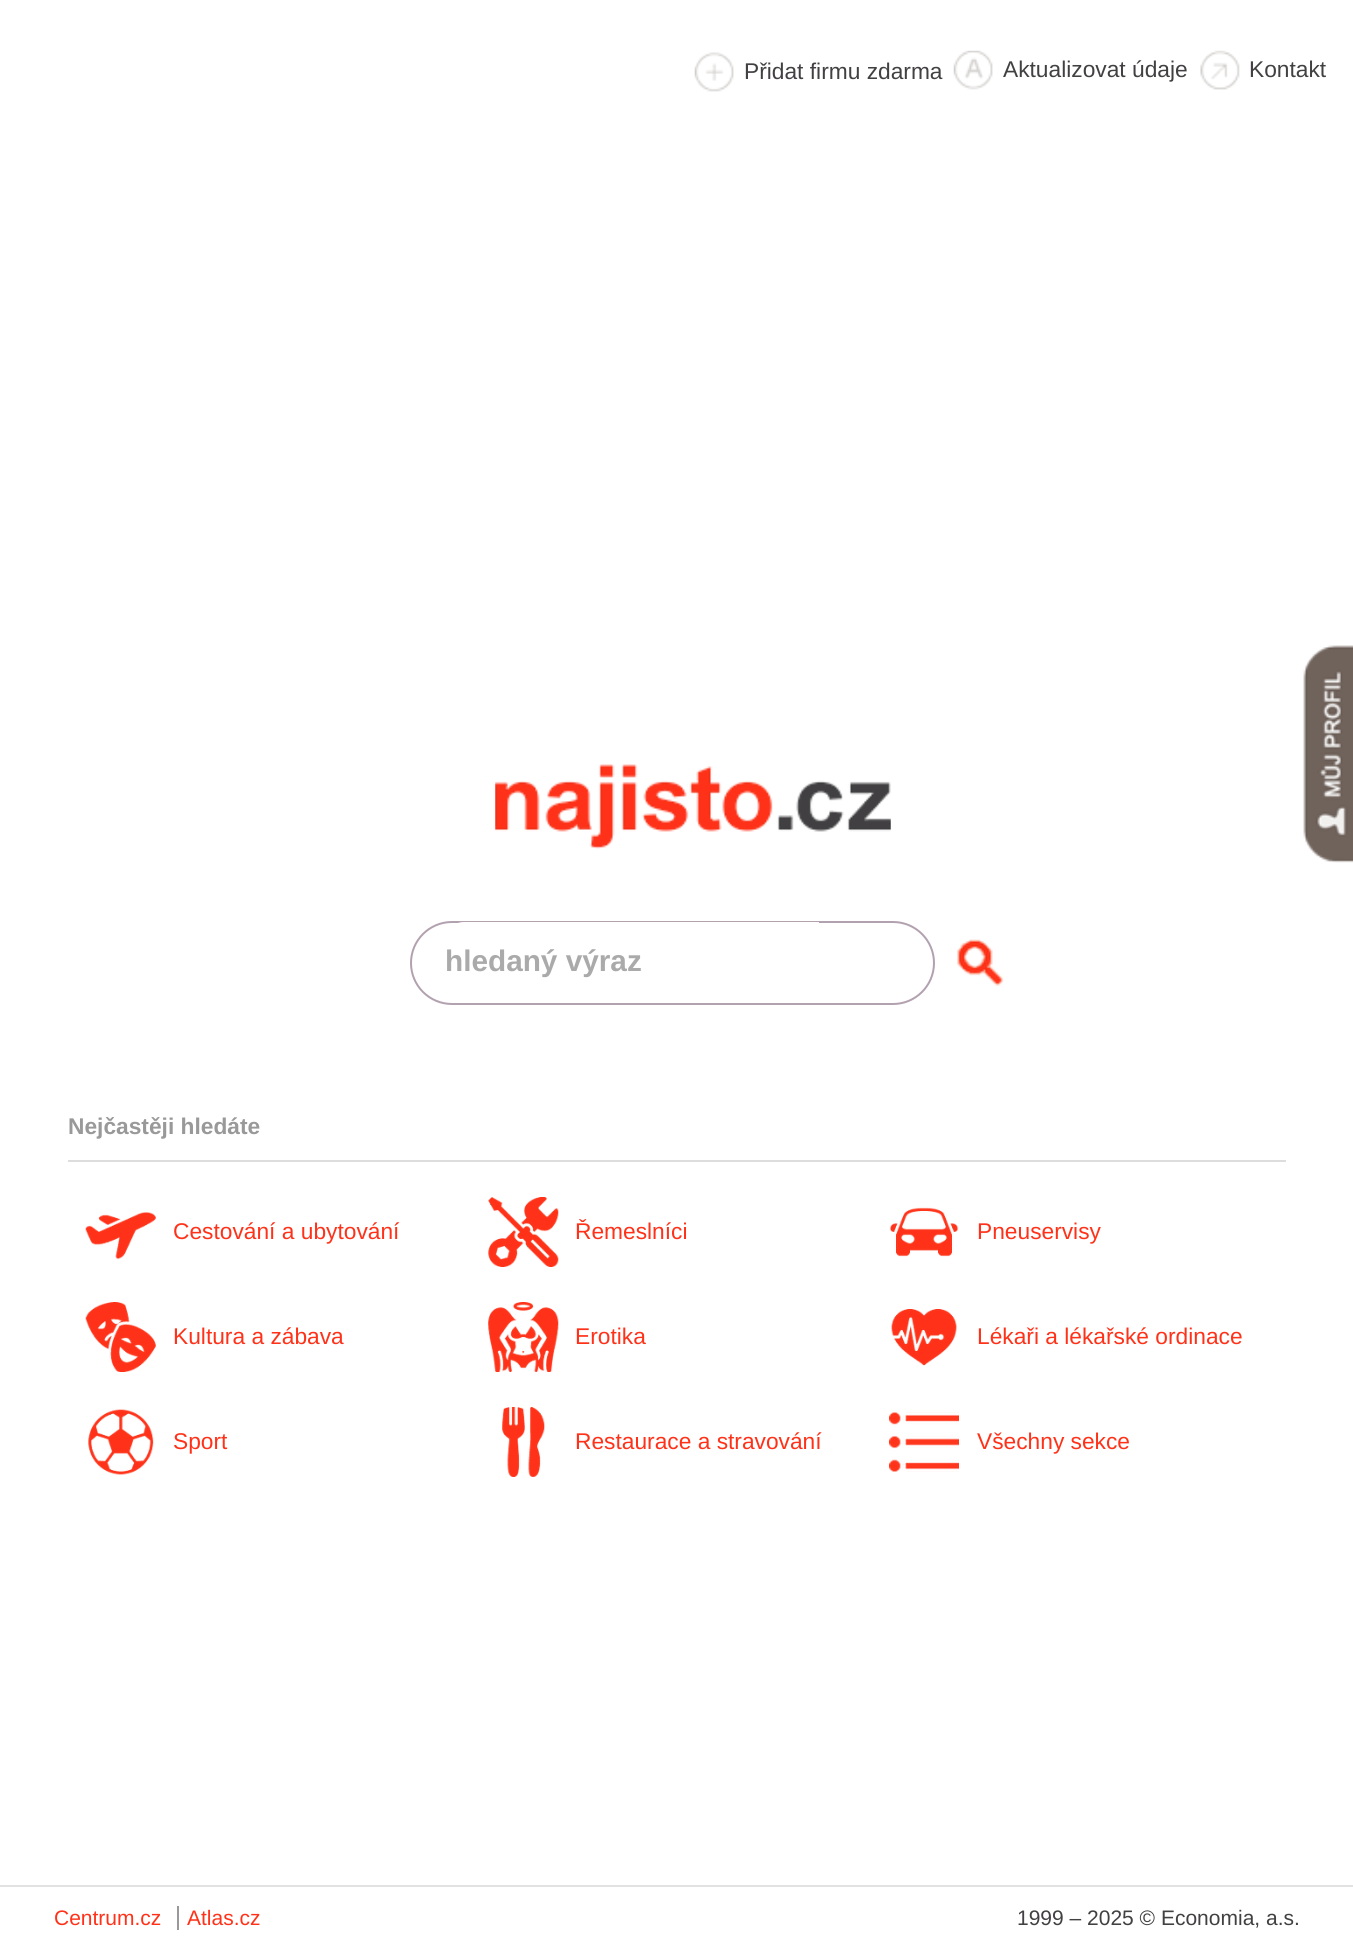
import math
import cairo

surface = cairo.ImageSurface(cairo.FORMAT_RGB24, 1353, 1948)
cr = cairo.Context(surface)
options = cairo.FontOptions()
options.set_hint_metrics(cairo.HINT_METRICS_OFF)
options.set_hint_style(cairo.HINT_STYLE_NONE)
cr.set_font_options(options)
cr.set_miter_limit(4)


def rgb(code):
    cr.set_source_rgb(*(v / 255 for v in bytes.fromhex(code[-6:])))


def rrect(x, y, w, h, r):
    cr.new_sub_path()
    for i, (u, v) in enumerate([(x + w - r, y + h - r), (x + r, y + h - r), (x + r, y + r), (x + w - r, y + r)]):
        cr.arc(u, v, r, i * math.pi / 2, (i + 1) * math.pi / 2)
    cr.close_path()


def image(path, x, y, w, h):
    cr.save()
    cr.set_source_surface(cairo.ImageSurface.create_from_png(path), x, y)
    cr.rectangle(x, y, w, h)
    cr.fill()
    cr.restore()


rgb("#ffffff")
cr.paint()
image("img/1.png", 694, 52, 40, 40)
image("img/2.png", 953, 50, 40, 40)
image("img/3.png", 1200, 50, 40, 40)
image("img/4.png", 1303, 645, 50, 218)
image("img/5.png", 495, 764, 396, 85)
rrect(411, 922, 523, 82, 41)
rgb("#b2a1af")
cr.stroke()
rgb("#ffffff")
cr.new_path()
cr.move_to(464, 922)
cr.line_to(819, 922)
cr.line_to(819, 1003)
cr.line_to(464, 1003)
cr.curve_to(454, 1003, 446, 995, 446, 985)
cr.line_to(446, 940)
cr.curve_to(446, 930, 454, 922, 464, 922)
cr.close_path()
cr.fill()
image("img/6.png", 956, 939, 48, 47)
rgb("#dddddd")
cr.rectangle(68, 1160, 1218, 2)
cr.fill()
image("img/7.png", 85, 1212, 71, 48)
image("img/8.png", 488, 1197, 71, 70)
image("img/9.png", 890, 1207, 69, 50)
image("img/10.png", 85, 1302, 71, 70)
image("img/11.png", 488, 1302, 71, 70)
image("img/12.png", 891, 1309, 66, 57)
image("img/13.png", 88, 1409, 66, 66)
image("img/14.png", 502, 1407, 43, 70)
image("img/15.png", 889, 1412, 70, 60)
rgb("#e2e2e2")
cr.rectangle(0, 1885, 1353, 2)
cr.fill()
rgb("#999999")
cr.rectangle(177, 1906, 2, 24)
cr.fill()
cr.select_font_face("Liberation Sans")
cr.set_font_size(22.75)
rgb("#424042")
for x, y, s in [
    (744, 79, "Přidat firmu zdarma"),
    (1003, 77, "Aktualizovat údaje"),
    (1249, 77, "Kontakt"),
]:
    cr.move_to(x, y)
    cr.show_text(s)
cr.select_font_face("Liberation Sans", cairo.FONT_SLANT_NORMAL, cairo.FONT_WEIGHT_BOLD)
cr.set_font_size(29.75)
rgb("#aaaaaa")
cr.move_to(445, 971)
cr.show_text("hledaný výraz")
cr.set_font_size(22.75)
rgb("#999999")
cr.move_to(68, 1134)
cr.show_text("Nejčastěji hledáte")
cr.select_font_face("Liberation Sans")
rgb("#ff3219")
for x, y, s in [
    (173, 1239, "Cestování a ubytování"),
    (575, 1239, "Řemeslníci"),
    (977, 1239, "Pneuservisy"),
    (173, 1344, "Kultura a zábava"),
    (575, 1344, "Erotika"),
    (977, 1344, "Lékaři a lékařské ordinace"),
    (173, 1449, "Sport"),
    (575, 1449, "Restaurace a stravování"),
    (977, 1449, "Všechny sekce"),
]:
    cr.move_to(x, y)
    cr.show_text(s)
cr.set_font_size(21)
cr.move_to(54, 1925)
cr.show_text("Centrum.cz")
cr.move_to(187, 1925)
cr.show_text("Atlas.cz")
rgb("#424042")
cr.move_to(1017, 1925)
cr.show_text("1999 – 2025 © Economia, a.s.")
surface.write_to_png("page.png")
